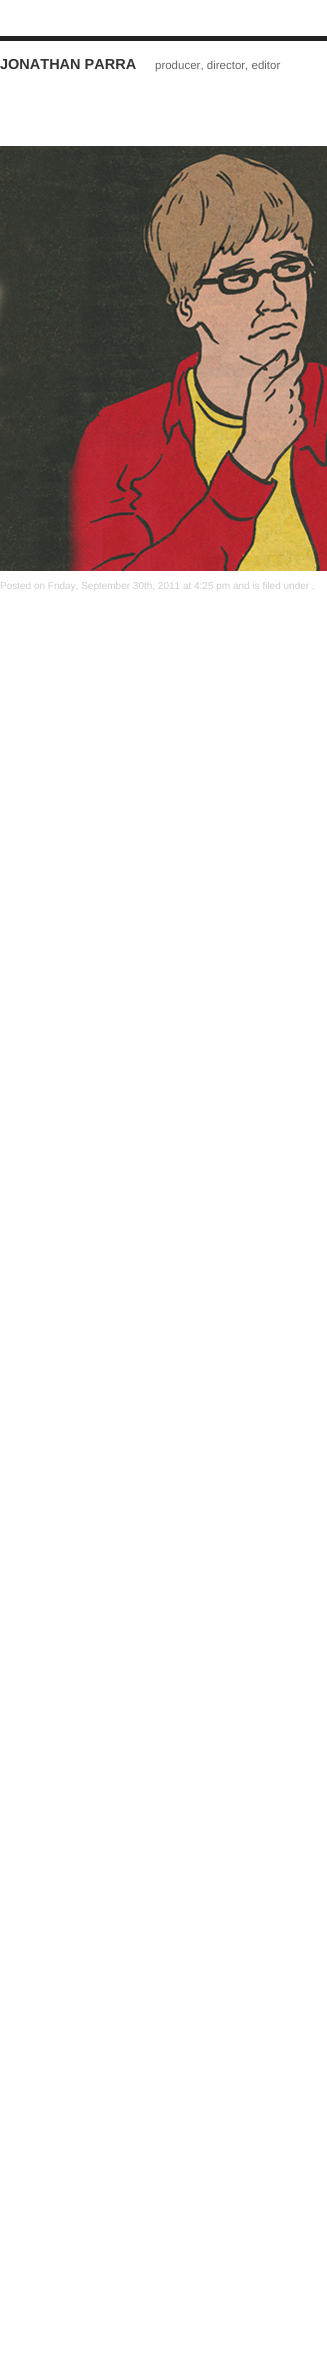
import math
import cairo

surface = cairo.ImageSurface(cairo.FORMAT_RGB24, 327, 2374)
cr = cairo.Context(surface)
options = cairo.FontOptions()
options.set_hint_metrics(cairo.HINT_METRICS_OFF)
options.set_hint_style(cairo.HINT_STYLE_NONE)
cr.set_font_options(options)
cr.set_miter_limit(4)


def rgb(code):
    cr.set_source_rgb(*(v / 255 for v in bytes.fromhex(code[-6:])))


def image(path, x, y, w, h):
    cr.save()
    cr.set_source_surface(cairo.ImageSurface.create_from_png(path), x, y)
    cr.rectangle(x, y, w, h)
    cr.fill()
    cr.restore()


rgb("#ffffff")
cr.paint()
rgb("#222222")
cr.rectangle(0, 36, 327, 5)
cr.fill()
image("img/1.png", 0, 146, 327, 425)
cr.select_font_face("Liberation Sans", cairo.FONT_SLANT_NORMAL, cairo.FONT_WEIGHT_BOLD)
cr.set_font_size(14.5)
rgb("#333333")
cr.move_to(0, 69)
cr.show_text("JONATHAN PARRA")
cr.select_font_face("Liberation Sans")
cr.set_font_size(11.5)
rgb("#666666")
cr.move_to(155, 69)
cr.show_text("producer, director, editor")
cr.set_font_size(10)
rgb("#cccccc")
cr.move_to(0, 589)
cr.show_text("Posted on Friday, September 30th, 2011 at 4:25 pm and is filed under .")
surface.write_to_png("page.png")
